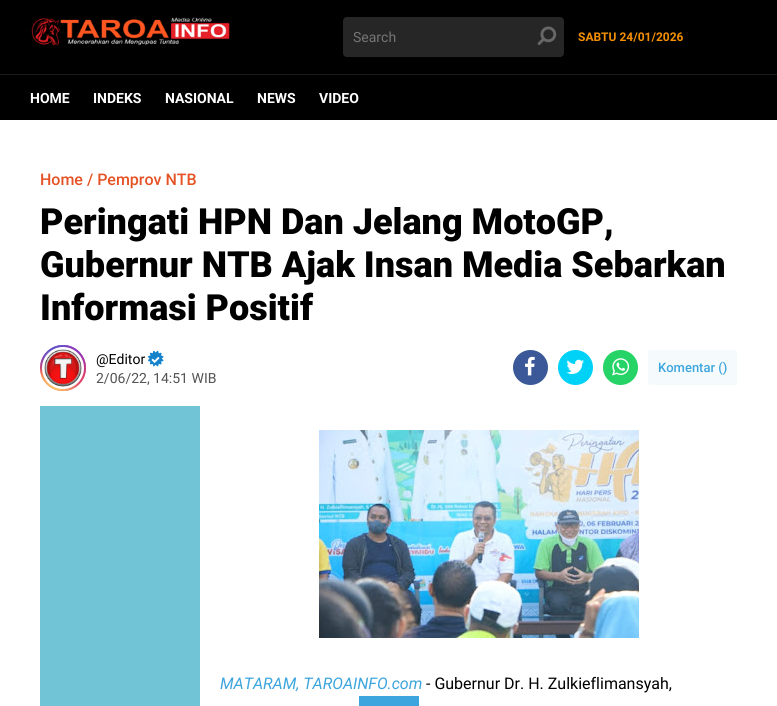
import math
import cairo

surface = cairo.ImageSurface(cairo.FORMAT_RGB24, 777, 706)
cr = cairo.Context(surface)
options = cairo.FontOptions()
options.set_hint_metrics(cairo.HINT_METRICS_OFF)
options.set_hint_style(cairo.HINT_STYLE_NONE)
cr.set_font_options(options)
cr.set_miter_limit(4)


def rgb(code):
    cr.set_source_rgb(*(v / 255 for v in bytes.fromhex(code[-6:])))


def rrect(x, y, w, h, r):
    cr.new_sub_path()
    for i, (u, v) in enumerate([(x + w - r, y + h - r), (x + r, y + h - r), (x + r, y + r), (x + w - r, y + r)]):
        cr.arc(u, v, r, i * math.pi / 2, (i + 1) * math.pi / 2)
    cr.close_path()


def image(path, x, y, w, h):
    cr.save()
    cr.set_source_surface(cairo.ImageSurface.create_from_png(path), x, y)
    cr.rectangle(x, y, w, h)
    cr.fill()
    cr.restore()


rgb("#ffffff")
cr.paint()
rgb("#000000")
cr.rectangle(0, 0, 777, 120)
cr.fill()
image("img/1.png", 31, 17, 199, 29)
rgb("#262626")
rrect(343, 17, 221, 40, 4)
cr.fill()
image("img/2.png", 537, 26, 20, 19)
rgb("#1a1a1a")
cr.rectangle(0, 74, 777, 1)
cr.fill()
gradient = cairo.LinearGradient(63, 345, 63, 391)
gradient.add_color_stop_rgba(0, 0.396, 0.349, 0.792, 1)
gradient.add_color_stop_rgba(0.3, 0.737, 0.192, 0.561, 1)
gradient.add_color_stop_rgba(0.5, 0.89, 0.247, 0.373, 1)
gradient.add_color_stop_rgba(0.7, 0.969, 0.463, 0.22, 1)
gradient.add_color_stop_rgba(1, 0.996, 0.776, 0.427, 1)
cr.set_source(gradient)
cr.arc(63, 368, 23, 0, 2 * math.pi)
cr.fill()
gradient = cairo.RadialGradient(86, 391, 0, 86, 391, 65)
gradient.add_color_stop_rgba(0, 0.851, 0.192, 0.478, 1)
gradient.add_color_stop_rgba(1, 0.851, 0.192, 0.478, 0)
cr.set_source(gradient)
cr.arc(63, 368, 23, 0, 2 * math.pi)
cr.fill()
gradient = cairo.RadialGradient(0, 0, 0, 0, 0, 1)
gradient.set_matrix(cairo.Matrix(1 / 39, 0, 0, 1 / 78, -1 * 68 / 39, -1 * 336 / 78))
gradient.add_color_stop_rgba(0, 0.537, 0.239, 0.761, 1)
gradient.add_color_stop_rgba(0.5, 0.537, 0.239, 0.761, 0)
cr.set_source(gradient)
cr.arc(63, 368, 23, 0, 2 * math.pi)
cr.fill()
gradient = cairo.RadialGradient(86, 345, 0, 86, 345, 65)
gradient.add_color_stop_rgba(0, 0.537, 0.239, 0.761, 1)
gradient.add_color_stop_rgba(0.5, 0.537, 0.239, 0.761, 0)
cr.set_source(gradient)
cr.arc(63, 368, 23, 0, 2 * math.pi)
cr.fill()
gradient = cairo.RadialGradient(0, 0, 0, 0, 0, 1)
gradient.set_matrix(cairo.Matrix(1 / 52, 0, 0, 1 / 98, -1 * 49 / 52, -1 * 322 / 98))
gradient.add_color_stop_rgba(0, 0.322, 0.345, 0.812, 1)
gradient.add_color_stop_rgba(0.5, 0.322, 0.345, 0.812, 0)
cr.set_source(gradient)
cr.arc(63, 368, 23, 0, 2 * math.pi)
cr.fill()
gradient = cairo.RadialGradient(0, 0, 0, 0, 0, 1)
gradient.set_matrix(cairo.Matrix(1 / 65, 0, 0, 1 / 81, -1 * 40 / 65, -1 * 334 / 81))
gradient.add_color_stop_rgba(0, 0.322, 0.345, 0.812, 1)
gradient.add_color_stop_rgba(0.5, 0.322, 0.345, 0.812, 0)
cr.set_source(gradient)
cr.arc(63, 368, 23, 0, 2 * math.pi)
cr.fill()
gradient = cairo.RadialGradient(40, 409, 0, 40, 409, 79)
gradient.add_color_stop_rgba(0, 0.996, 0.773, 0.392, 1)
gradient.add_color_stop_rgba(0.5, 0.996, 0.773, 0.392, 0)
cr.set_source(gradient)
cr.arc(63, 368, 23, 0, 2 * math.pi)
cr.fill()
gradient = cairo.RadialGradient(56, 386, 0, 56, 386, 51)
gradient.add_color_stop_rgba(0, 0.996, 0.773, 0.392, 1)
gradient.add_color_stop_rgba(0.5, 0.996, 0.773, 0.392, 0)
cr.set_source(gradient)
cr.arc(63, 368, 23, 0, 2 * math.pi)
cr.fill()
rgb("#ffffff")
cr.arc(63, 368, 21, 0, 2 * math.pi)
cr.fill()
image("img/3.png", 44, 349, 38, 38)
image("img/4.png", 148, 350, 16, 17)
image("img/5.png", 151, 357, 9, 6)
rgb("#3b5998")
cr.arc(530.5, 367.5, 17.5, 0, 2 * math.pi)
cr.fill()
image("img/6.png", 525, 356, 10, 20)
rgb("#00d1f7")
cr.arc(575.5, 367.5, 17.5, 0, 2 * math.pi)
cr.fill()
image("img/7.png", 566, 359, 18, 15)
rgb("#25d366")
cr.arc(620.5, 367.5, 17.5, 0, 2 * math.pi)
cr.fill()
image("img/8.png", 612, 358, 18, 18)
rgb("#f5fbfd")
rrect(648, 350, 89, 35, 2)
cr.fill()
rgb("#71c4d6")
cr.rectangle(40, 406, 160, 300)
cr.fill()
image("img/9.png", 319, 430, 320, 208)
rgb("#3ca5dd")
cr.rectangle(359, 696, 60, 10)
cr.fill()
cr.select_font_face("Roboto")
cr.set_font_size(14)
rgb("#757575")
cr.move_to(353, 42)
cr.show_text("Search")
cr.select_font_face("Roboto", cairo.FONT_SLANT_NORMAL, cairo.FONT_WEIGHT_BOLD)
cr.set_font_size(12)
rgb("#f48f01")
cr.move_to(578, 41)
cr.show_text("SABTU 24/01/2026")
cr.select_font_face("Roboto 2", cairo.FONT_SLANT_NORMAL, cairo.FONT_WEIGHT_BOLD)
cr.set_font_size(14)
rgb("#ffffff")
for x, y, s in [
    (30, 103, "HOME"),
    (93, 103, "INDEKS"),
    (165, 103, "NASIONAL"),
    (257, 103, "NEWS"),
    (319, 103, "VIDEO"),
]:
    cr.move_to(x, y)
    cr.show_text(s)
cr.select_font_face("Roboto Medium")
cr.set_font_size(16)
rgb("#e55225")
cr.move_to(40, 185)
cr.show_text("Home / Pemprov NTB")
cr.select_font_face("Roboto Black")
cr.set_font_size(36)
rgb("#000000")
for x, y, s in [
    (40, 234, "Peringati HPN Dan Jelang MotoGP,"),
    (40, 277, "Gubernur NTB Ajak Insan Media Sebarkan"),
    (40, 320, "Informasi Positif"),
]:
    cr.move_to(x, y)
    cr.show_text(s)
cr.select_font_face("Roboto")
cr.set_font_size(14)
cr.move_to(96, 364)
cr.show_text("@Editor")
rgb("#545454")
cr.move_to(96, 383)
cr.show_text("2/06/22, 14:51 WIB")
cr.select_font_face("Roboto Medium")
cr.set_font_size(13)
rgb("#3ca5dd")
cr.move_to(658, 372)
cr.show_text("Komentar ()")
cr.select_font_face("Roboto", cairo.FONT_SLANT_ITALIC)
cr.set_font_size(16)
cr.move_to(220, 689)
cr.show_text("MATARAM, TAROAINFO.com")
cr.select_font_face("Roboto")
rgb("#000000")
cr.move_to(426, 689)
cr.show_text("- Gubernur Dr. H. Zulkieflimansyah,")
surface.write_to_png("page.png")
